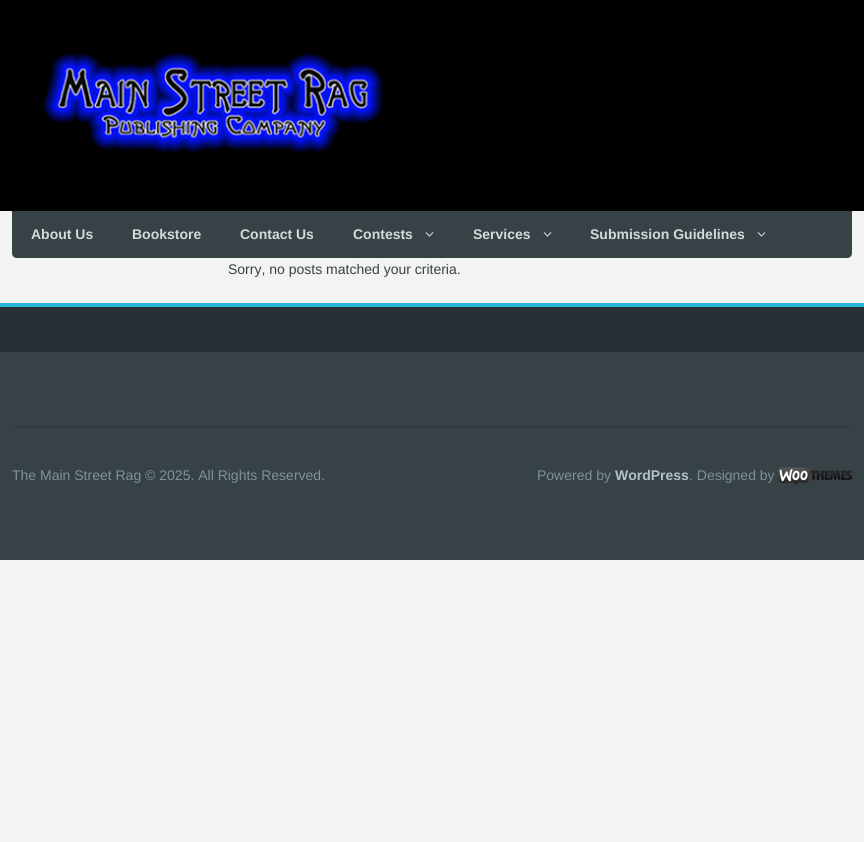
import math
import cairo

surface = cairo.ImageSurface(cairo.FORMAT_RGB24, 864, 842)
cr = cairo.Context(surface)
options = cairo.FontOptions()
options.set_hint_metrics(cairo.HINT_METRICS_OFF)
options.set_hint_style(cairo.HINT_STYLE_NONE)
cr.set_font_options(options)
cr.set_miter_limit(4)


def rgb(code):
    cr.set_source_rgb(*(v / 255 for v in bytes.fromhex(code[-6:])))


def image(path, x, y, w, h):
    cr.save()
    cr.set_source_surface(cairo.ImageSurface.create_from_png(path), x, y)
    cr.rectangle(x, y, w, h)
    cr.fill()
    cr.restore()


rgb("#f3f3f3")
cr.paint()
rgb("#000000")
cr.rectangle(0, 0, 864, 211)
cr.fill()
image("img/1.png", 42, 52, 341, 101)
rgb("#364245")
cr.new_path()
cr.move_to(12, 211)
cr.line_to(852, 211)
cr.line_to(852, 253)
cr.curve_to(852, 256, 850, 258, 847, 258)
cr.line_to(17, 258)
cr.curve_to(14, 258, 12, 256, 12, 253)
cr.close_path()
cr.fill()
image("img/2.png", 425, 232, 9, 5)
image("img/2.png", 543, 232, 9, 5)
image("img/2.png", 757, 232, 9, 5)
for x, y, w, h, color in [
    (0, 307, 864, 45, "#253134"),
    (0, 303, 864, 4, "#2ab6d6"),
    (0, 352, 864, 208, "#364245"),
    (12, 426, 840, 2, "#313b3e"),
]:
    rgb(color)
    cr.rectangle(x, y, w, h)
    cr.fill()
image("img/3.png", 778, 467, 74, 19)
cr.select_font_face("Liberation Sans", cairo.FONT_SLANT_NORMAL, cairo.FONT_WEIGHT_BOLD)
cr.set_font_size(14)
rgb("#d2dadb")
for x, y, s in [
    (31, 239, "About Us"),
    (132, 239, "Bookstore"),
    (240, 239, "Contact Us"),
    (353, 239, "Contests"),
    (473, 239, "Services"),
    (590, 239, "Submission Guidelines"),
]:
    cr.move_to(x, y)
    cr.show_text(s)
cr.select_font_face("Liberation Sans")
rgb("#364245")
cr.move_to(228, 274)
cr.show_text("Sorry, no posts matched your criteria.")
rgb("#7d9398")
cr.move_to(12, 480)
cr.show_text("The Main Street Rag © 2025. All Rights Reserved.")
cr.move_to(537, 480)
cr.show_text("Powered by")
cr.select_font_face("Liberation Sans", cairo.FONT_SLANT_NORMAL, cairo.FONT_WEIGHT_BOLD)
rgb("#b5c2c5")
cr.move_to(615, 480)
cr.show_text("WordPress")
cr.select_font_face("Liberation Sans")
rgb("#7d9398")
cr.move_to(689, 480)
cr.show_text(". Designed by")
surface.write_to_png("page.png")
